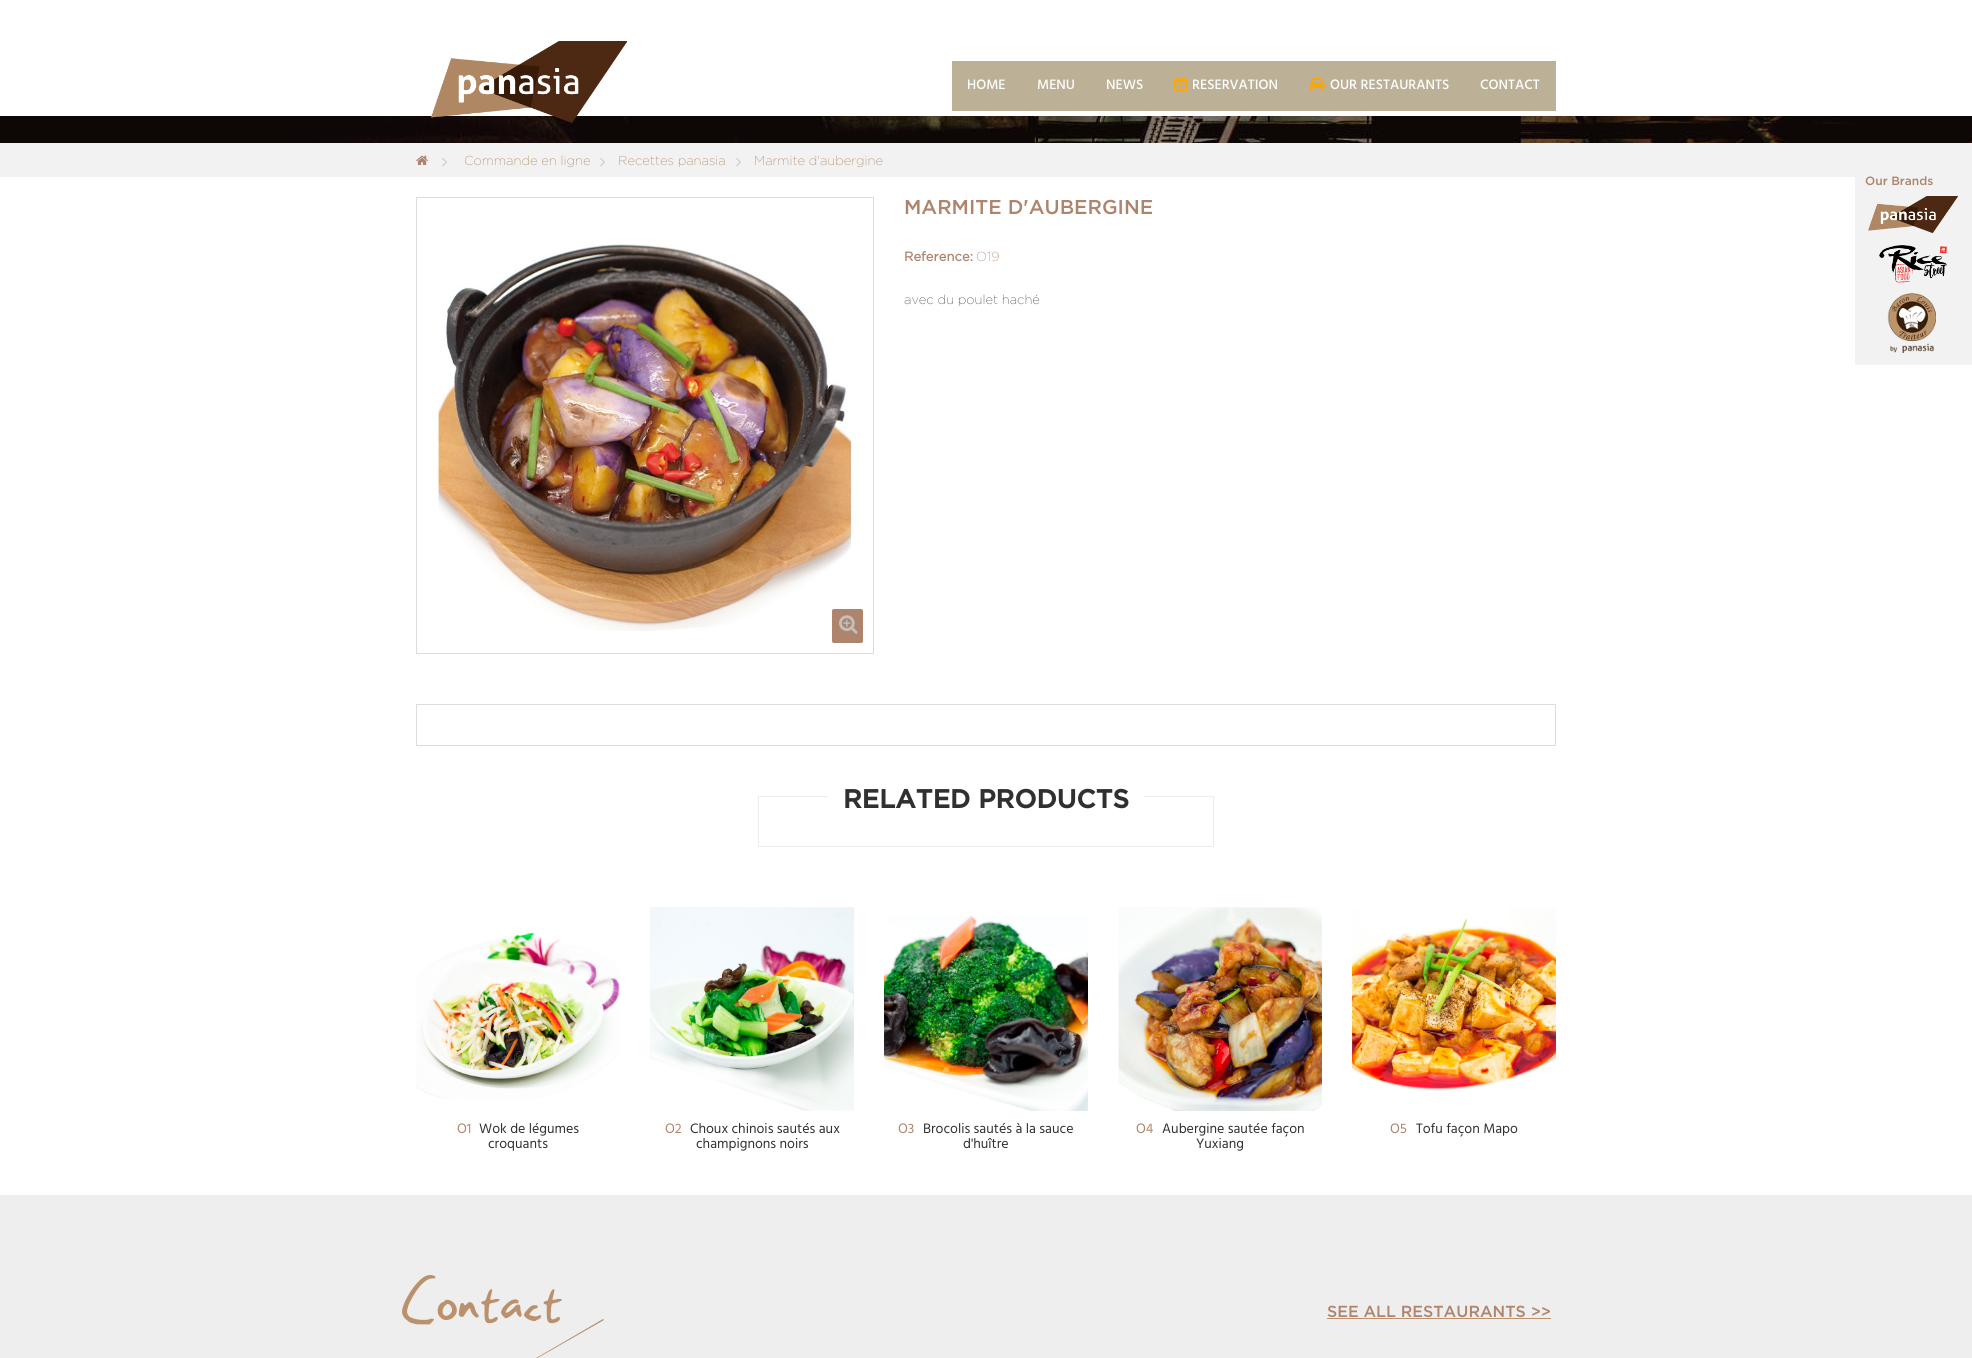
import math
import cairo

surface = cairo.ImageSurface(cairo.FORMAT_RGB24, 1972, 1358)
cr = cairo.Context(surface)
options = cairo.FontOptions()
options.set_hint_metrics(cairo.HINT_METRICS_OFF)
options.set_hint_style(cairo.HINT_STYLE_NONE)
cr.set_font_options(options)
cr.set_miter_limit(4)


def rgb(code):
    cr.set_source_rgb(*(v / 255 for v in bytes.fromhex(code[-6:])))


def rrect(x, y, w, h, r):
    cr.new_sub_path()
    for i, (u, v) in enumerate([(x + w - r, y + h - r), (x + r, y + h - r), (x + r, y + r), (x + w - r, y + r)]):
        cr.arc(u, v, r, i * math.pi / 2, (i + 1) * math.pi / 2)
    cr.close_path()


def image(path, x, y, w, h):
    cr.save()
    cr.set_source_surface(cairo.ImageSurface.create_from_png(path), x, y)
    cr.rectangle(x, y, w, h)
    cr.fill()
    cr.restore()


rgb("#ffffff")
cr.paint()
image("img/1.png", 0, 116, 1972, 27)
image("img/2.png", 431, 41, 196, 82)
rgb("#bcb097")
cr.rectangle(952, 61, 604, 50)
cr.fill()
image("img/3.png", 1174, 77, 13, 14)
image("img/4.png", 1309, 78, 16, 13)
rgb("#f2f2f2")
cr.rectangle(0, 143, 1972, 34)
cr.fill()
image("img/5.png", 416, 155, 12, 10)
image("img/6.png", 442, 158, 5, 9)
image("img/6.png", 600, 158, 5, 9)
image("img/6.png", 736, 158, 5, 9)
cr.rectangle(416.5, 197.5, 457, 456)
rgb("#dddddd")
cr.set_line_width(1)
cr.stroke()
image("img/7.png", 432, 244, 427, 387)
rgb("#ae846d")
rrect(832.5, 609.5, 30, 33, 1.5)
cr.fill_preserve()
cr.stroke()
image("img/8.png", 839, 615, 19, 19)
cr.rectangle(416.5, 704.5, 1139, 41)
rgb("#dddddd")
cr.stroke()
cr.rectangle(758.5, 796.5, 455, 50)
rgb("#ebeeed")
cr.stroke()
rgb("#ffffff")
cr.rectangle(828, 796, 316, 1)
cr.fill()
image("img/9.png", 416, 932, 204, 167)
image("img/10.png", 650, 907, 204, 204)
image("img/11.png", 884, 915, 204, 196)
image("img/12.png", 1118, 907, 204, 204)
image("img/13.png", 1352, 907, 204, 184)
rgb("#eeeeee")
cr.rectangle(0, 1195, 1972, 163)
cr.fill()
rgb("#bb916d")
cr.new_path()
cr.move_to(603, 1319)
cr.line_to(604, 1320)
cr.line_to(520, 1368)
cr.line_to(519, 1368)
cr.close_path()
cr.fill()
cr.rectangle(1327, 1318, 224, 1)
cr.fill()
rgb("#f2f2f2")
cr.rectangle(1855, 177, 117, 188)
cr.fill()
image("img/14.png", 1868, 196, 90, 38)
image("img/15.png", 1879, 245, 68, 38)
image("img/16.png", 1887, 293, 49, 60)
cr.select_font_face("Hind Medium")
cr.set_font_size(14)
rgb("#ffffff")
for x, y, s in [
    (967, 89, "HOME"),
    (1037, 89, "MENU"),
    (1106, 89, "NEWS"),
    (1192, 89, "RESERVATION"),
    (1330, 89, "OUR RESTAURANTS"),
    (1480, 89, "CONTACT"),
]:
    cr.move_to(x, y)
    cr.show_text(s)
cr.select_font_face("Gotham ExtraLight")
cr.set_font_size(13)
rgb("#af8762")
for x, y, s in [
    (464, 165, "Commande en ligne"),
    (618, 165, "Recettes panasia"),
    (754, 165, "Marmite d'aubergine"),
]:
    cr.move_to(x, y)
    cr.show_text(s)
cr.select_font_face("Gotham Medium")
cr.set_font_size(20)
rgb("#ae846d")
cr.move_to(904, 214)
cr.show_text("MARMITE D'AUBERGINE")
cr.select_font_face("Gotham", cairo.FONT_SLANT_NORMAL, cairo.FONT_WEIGHT_BOLD)
cr.set_font_size(13)
cr.move_to(904, 261)
cr.show_text("Reference:")
cr.select_font_face("Gotham ExtraLight")
cr.move_to(976, 261)
cr.show_text("O19")
rgb("#4c4c4c")
cr.move_to(904, 304)
cr.show_text("avec du poulet haché")
cr.select_font_face("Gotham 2", cairo.FONT_SLANT_NORMAL, cairo.FONT_WEIGHT_BOLD)
cr.set_font_size(26)
rgb("#303030")
cr.move_to(843, 808)
cr.show_text("RELATED PRODUCTS")
cr.select_font_face("Hind")
cr.set_font_size(14)
rgb("#ae846d")
cr.move_to(457, 1133)
cr.show_text("O1")
rgb("#303030")
cr.move_to(479, 1133)
cr.show_text("Wok de légumes")
cr.move_to(488, 1148)
cr.show_text("croquants")
rgb("#ae846d")
cr.move_to(665, 1133)
cr.show_text("O2")
rgb("#303030")
cr.move_to(690, 1133)
cr.show_text("Choux chinois sautés aux")
cr.move_to(696, 1148)
cr.show_text("champignons noirs")
rgb("#ae846d")
cr.move_to(898, 1133)
cr.show_text("O3")
rgb("#303030")
cr.move_to(923, 1133)
cr.show_text("Brocolis sautés à la sauce")
cr.move_to(963, 1148)
cr.show_text("d'huître")
rgb("#ae846d")
cr.move_to(1136, 1133)
cr.show_text("O4")
rgb("#303030")
cr.move_to(1162, 1133)
cr.show_text("Aubergine sautée façon")
cr.move_to(1196, 1148)
cr.show_text("Yuxiang")
rgb("#ae846d")
cr.move_to(1390, 1133)
cr.show_text("O5")
rgb("#303030")
cr.move_to(1416, 1133)
cr.show_text("Tofu façon Mapo")
cr.select_font_face("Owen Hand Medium")
cr.set_font_size(70)
rgb("#bb916d")
cr.move_to(401, 1317)
cr.show_text("Contact")
cr.select_font_face("Gotham Medium")
cr.set_font_size(16)
rgb("#ae846d")
cr.move_to(1327, 1317)
cr.show_text("SEE ALL RESTAURANTS >>")
cr.set_font_size(12)
cr.move_to(1865, 185)
cr.show_text("Our Brands")
surface.write_to_png("page.png")
